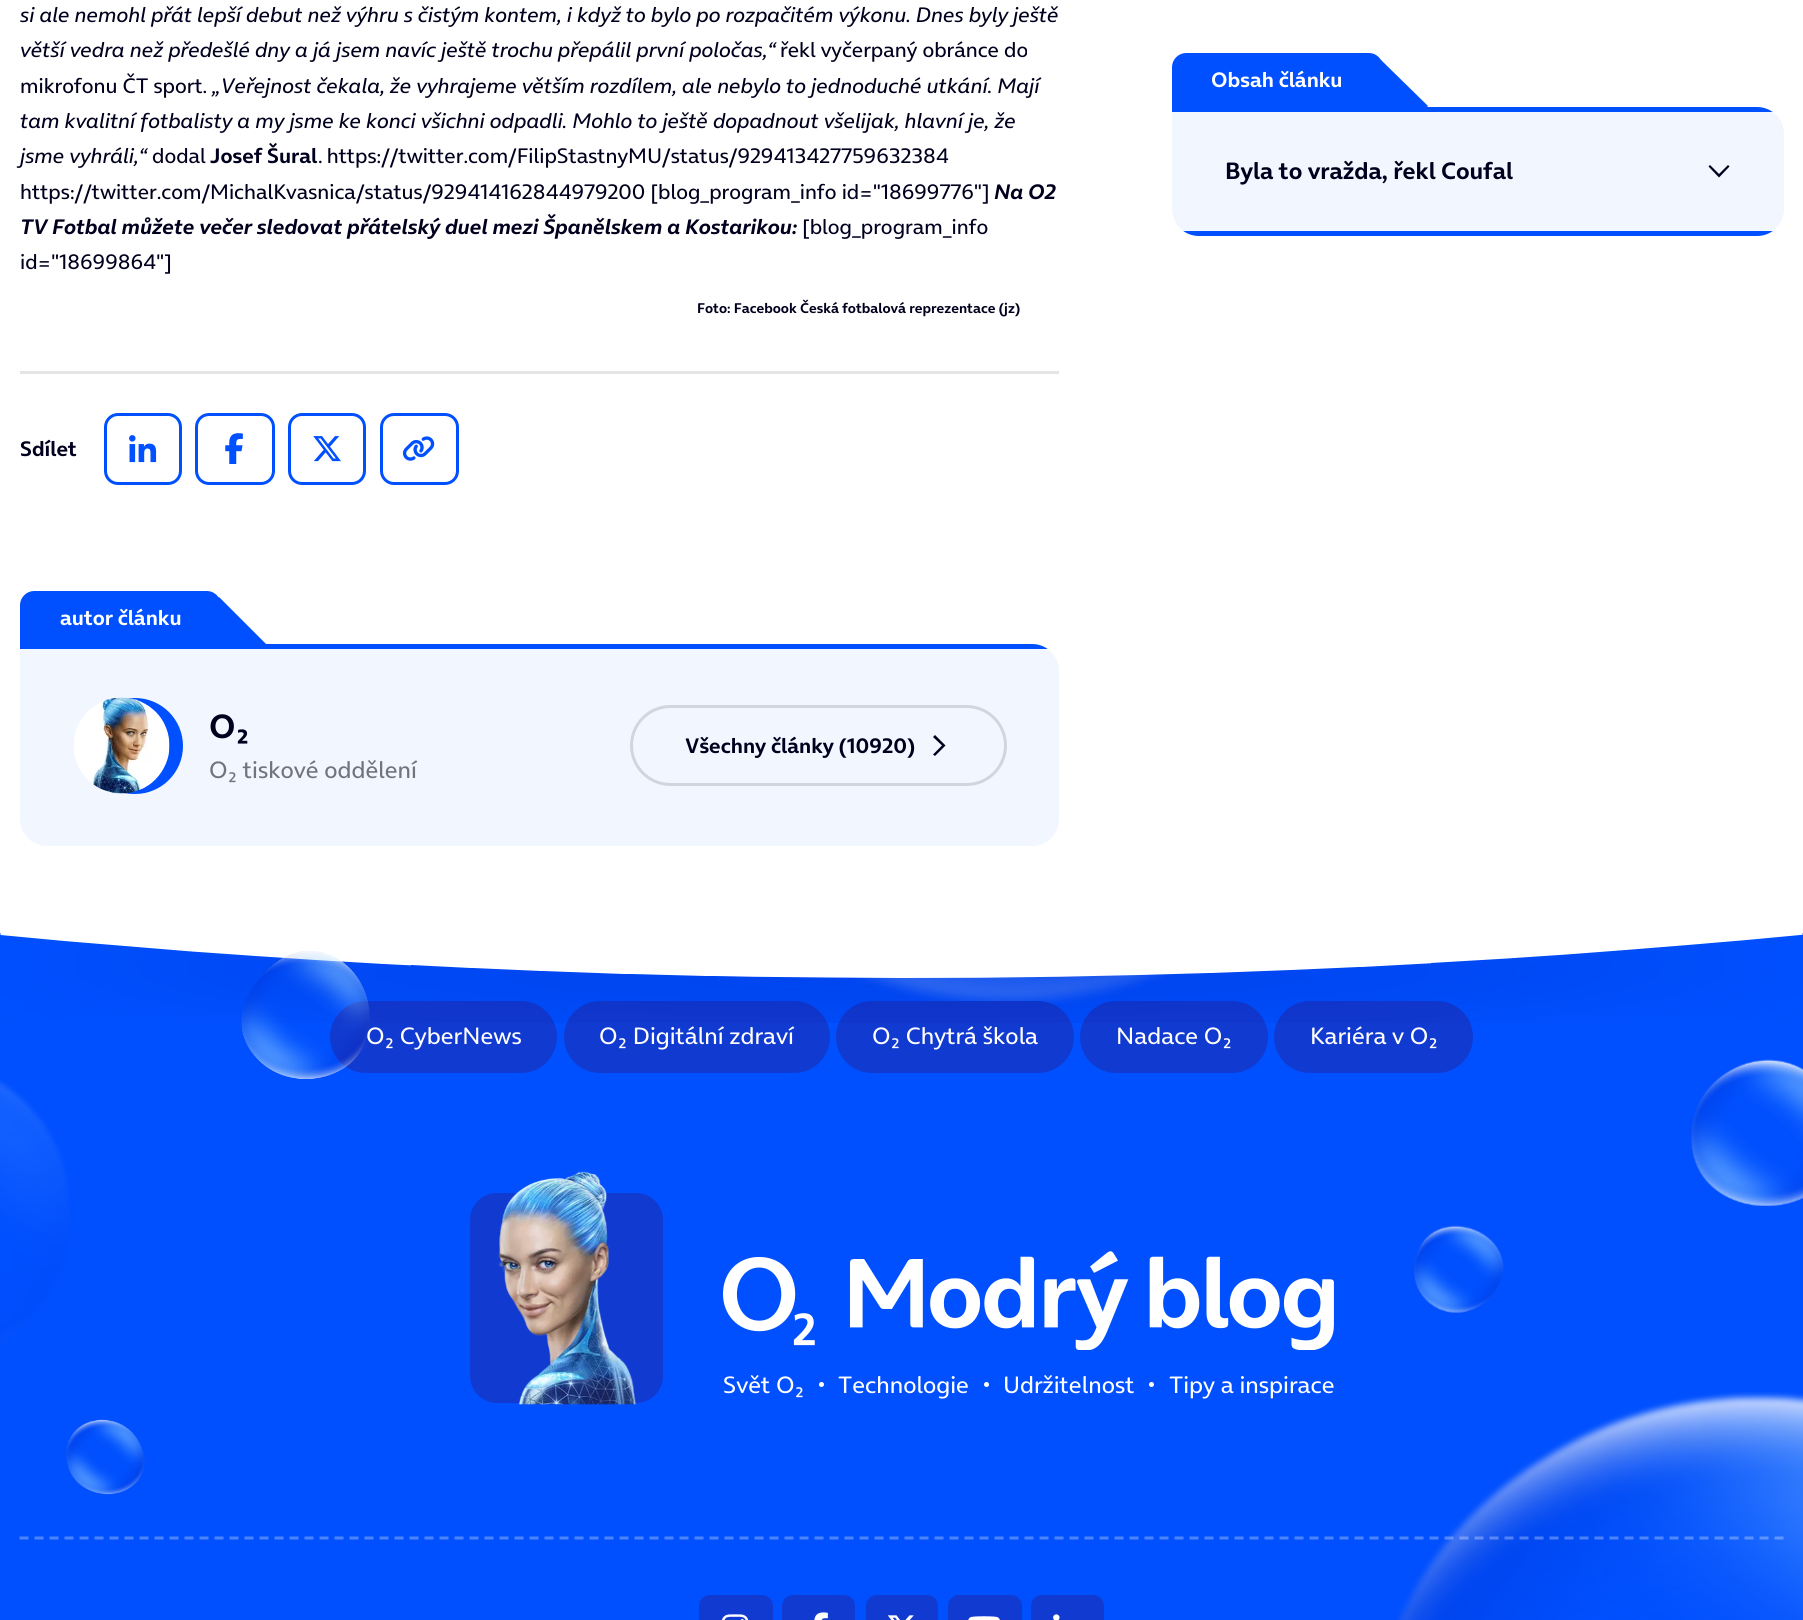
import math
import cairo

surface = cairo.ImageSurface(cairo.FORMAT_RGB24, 1803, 1620)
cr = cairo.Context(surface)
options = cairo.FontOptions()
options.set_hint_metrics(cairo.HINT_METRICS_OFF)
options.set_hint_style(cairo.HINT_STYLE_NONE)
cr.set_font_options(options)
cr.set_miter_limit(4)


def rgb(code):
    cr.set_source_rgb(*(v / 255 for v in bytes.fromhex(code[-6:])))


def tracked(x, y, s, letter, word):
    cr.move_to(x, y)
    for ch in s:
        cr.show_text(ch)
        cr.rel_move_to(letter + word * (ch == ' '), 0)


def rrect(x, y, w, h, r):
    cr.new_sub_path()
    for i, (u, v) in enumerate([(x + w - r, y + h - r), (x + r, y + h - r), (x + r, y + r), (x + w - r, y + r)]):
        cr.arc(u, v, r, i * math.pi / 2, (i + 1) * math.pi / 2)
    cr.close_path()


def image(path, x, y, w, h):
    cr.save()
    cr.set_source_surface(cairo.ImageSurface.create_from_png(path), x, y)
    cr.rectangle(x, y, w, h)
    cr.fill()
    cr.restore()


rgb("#ffffff")
cr.paint()
rgb("#e4e4e5")
cr.rectangle(20, 371, 1039, 3)
cr.fill()
rrect(105.5, 414.5, 75, 69, 12.5)
rgb("#0050ff")
cr.set_line_width(3)
cr.stroke()
image("img/1.png", 129, 435, 28, 28)
rrect(196.5, 414.5, 77, 69, 12.5)
cr.stroke()
image("img/2.png", 225, 433, 18, 31)
rrect(289.5, 414.5, 75, 69, 12.5)
cr.stroke()
image("img/3.png", 313, 436, 28, 26)
rrect(381.5, 414.5, 76, 69, 12.5)
cr.stroke()
image("img/4.png", 402, 436, 33, 25)
cr.new_path()
cr.move_to(34, 591)
cr.line_to(207, 591)
cr.curve_to(214.5, 591, 221, 597.5, 221, 605)
cr.line_to(221, 644)
cr.line_to(20, 644)
cr.line_to(20, 605)
cr.curve_to(20, 597.5, 26.5, 591, 34, 591)
cr.close_path()
cr.fill()
cr.new_path()
cr.move_to(1186, 53)
cr.line_to(1369, 53)
cr.curve_to(1376.5, 53, 1383, 59.5, 1383, 67)
cr.line_to(1383, 107)
cr.line_to(1172, 107)
cr.line_to(1172, 67)
cr.curve_to(1172, 59.5, 1178.5, 53, 1186, 53)
cr.close_path()
cr.fill()
cr.rectangle(0, 933, 1803, 687)
cr.fill()
image("img/7.png", 1414, 1225, 90, 88)
image("img/9.png", 856, 974, 310, 30)
rgb("#113ad0")
rrect(330, 1001, 227, 72, 36)
cr.fill()
rrect(564, 1001, 266, 72, 36)
cr.fill()
rrect(836, 1001, 238, 72, 36)
cr.fill()
rrect(1080, 1001, 188, 72, 36)
cr.fill()
rrect(1274, 1001, 199, 72, 36)
cr.fill()
image("img/8.png", 0, 933, 1803, 90)
image("img/10.png", 0, 1080, 69, 263)
image("img/11.png", 1691, 1059, 112, 147)
image("img/12.png", 66, 1419, 79, 76)
image("img/13.png", 1396, 1392, 407, 228)
rrect(470, 1193, 193, 210, 27)
cr.fill()
image("img/14.png", 498, 1171, 139, 234)
image("img/15.png", 723, 1251, 611, 99)
rgb("#ffffff")
cr.arc(821.5, 1384.5, 2.5, 0, 2 * math.pi)
cr.fill()
cr.arc(986.5, 1384.5, 2.5, 0, 2 * math.pi)
cr.fill()
cr.arc(1151.5, 1384.5, 2.5, 0, 2 * math.pi)
cr.fill()
cr.new_path()
cr.move_to(19.5, 1538)
cr.line_to(1783.5, 1538)
cr.set_source_rgba(1, 1, 1, 0.3)
cr.set_dash([9, 6])
cr.stroke()
rgb("#113ad0")
rrect(697.5, 1593.5, 77, 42, 12.5)
cr.fill_preserve()
rgb("#0050ff")
cr.set_dash([])
cr.stroke()
image("img/16.png", 722, 1614, 27, 6)
rgb("#113ad0")
rrect(780.5, 1593.5, 76, 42, 12.5)
cr.fill_preserve()
rgb("#0050ff")
cr.stroke()
image("img/17.png", 814, 1612, 14, 8)
rgb("#113ad0")
rrect(864.5, 1593.5, 75, 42, 12.5)
cr.fill_preserve()
rgb("#0050ff")
cr.stroke()
image("img/18.png", 887, 1615, 27, 5)
rgb("#113ad0")
rrect(946.5, 1593.5, 77, 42, 12.5)
cr.fill_preserve()
rgb("#0050ff")
cr.stroke()
image("img/19.png", 968, 1616, 32, 4)
rgb("#113ad0")
rrect(1029.5, 1593.5, 76, 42, 12.5)
cr.fill_preserve()
rgb("#0050ff")
cr.stroke()
image("img/20.png", 1053, 1614, 7, 6)
cr.select_font_face("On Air", cairo.FONT_SLANT_ITALIC)
cr.set_font_size(21.2)
rgb("#00001e")
cr.move_to(20, 22)
cr.show_text("si ale nemohl přát lepší debut než výhru s čistým kontem, i když to bylo po rozpačitém výkonu. Dnes byly ještě")
cr.move_to(20, 57)
cr.show_text("větší vedra než předešlé dny a já jsem navíc ještě trochu přepálil první poločas,“")
cr.select_font_face("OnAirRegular")
cr.move_to(780, 57)
cr.show_text("řekl vyčerpaný obránce do")
cr.move_to(20, 93)
cr.show_text("mikrofonu ČT sport.")
cr.select_font_face("On Air", cairo.FONT_SLANT_ITALIC)
for x, y, s in [
    (212, 93, "„Veřejnost čekala, že vyhrajeme větším rozdílem, ale nebylo to jednoduché utkání. Mají"),
    (20, 128, "tam kvalitní fotbalisty a my jsme ke konci všichni odpadli. Mohlo to ještě dopadnout všelijak, hlavní je, že"),
    (20, 163, "jsme vyhráli,“"),
]:
    cr.move_to(x, y)
    cr.show_text(s)
cr.select_font_face("OnAirRegular")
cr.move_to(152, 163)
cr.show_text("dodal")
cr.select_font_face("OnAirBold", cairo.FONT_SLANT_NORMAL, cairo.FONT_WEIGHT_BOLD)
cr.move_to(210, 163)
cr.show_text("Josef Šural")
cr.select_font_face("OnAirRegular")
tracked(318, 163, ". https://twitter.com/FilipStastnyMU/status/929413427759632384", 0, -1)
cr.move_to(20, 199)
cr.show_text("https://twitter.com/MichalKvasnica/status/929414162844979200 [blog_program_info id=\"18699776\"]")
cr.select_font_face("On Air", cairo.FONT_SLANT_ITALIC, cairo.FONT_WEIGHT_BOLD)
cr.move_to(994, 199)
cr.show_text("Na O2")
cr.move_to(20, 234)
cr.show_text("TV Fotbal můžete večer sledovat přátelský duel mezi Španělskem a Kostarikou:")
cr.select_font_face("OnAirRegular")
cr.move_to(802, 234)
cr.show_text("[blog_program_info")
cr.move_to(20, 269)
cr.show_text("id=\"18699864\"]")
cr.select_font_face("OnAirBold", cairo.FONT_SLANT_NORMAL, cairo.FONT_WEIGHT_BOLD)
cr.set_font_size(14.25)
cr.move_to(697, 313)
cr.show_text("Foto: Facebook Česká fotbalová reprezentace (jz)")
cr.set_font_size(21.2)
cr.move_to(20, 456)
cr.show_text("Sdílet")
rgb("#ffffff")
cr.move_to(60, 625)
cr.show_text("autor článku")
rgb("#0050ff")
cr.new_path()
cr.move_to(219, 597)
cr.line_to(266, 644)
cr.line_to(219, 691)
cr.line_to(173, 644)
cr.close_path()
cr.fill()
rgb("#f2f6ff")
cr.new_path()
cr.move_to(20, 644)
cr.line_to(1032, 644)
cr.curve_to(1047, 644, 1059, 656, 1059, 671)
cr.line_to(1059, 819)
cr.curve_to(1059, 834, 1047, 846, 1032, 846)
cr.line_to(47, 846)
cr.curve_to(32, 846, 20, 834, 20, 819)
cr.close_path()
cr.fill()
cr.save()
cr.new_path()
cr.move_to(20, 644)
cr.line_to(1032, 644)
cr.curve_to(1047, 644, 1059, 656, 1059, 671)
cr.line_to(1059, 819)
cr.curve_to(1059, 834, 1047, 846, 1032, 846)
cr.line_to(47, 846)
cr.curve_to(32, 846, 20, 834, 20, 819)
cr.close_path()
cr.clip()
rgb("#0050ff")
cr.rectangle(20, 644, 1028, 5)
cr.fill()
cr.restore()
rgb("#0050ff")
rrect(86, 698, 97, 96, 48)
cr.fill()
image("img/5.png", 74, 697, 96, 97)
cr.set_font_size(34)
rgb("#00001e")
cr.move_to(209, 738)
cr.show_text("O₂")
cr.select_font_face("OnAirRegular")
cr.set_font_size(23.9)
rgb("#73737d")
cr.move_to(209, 778)
cr.show_text("O₂ tiskové oddělení")
rrect(631.5, 706.5, 374, 78, 39)
rgb("#d3d5de")
cr.stroke()
cr.select_font_face("OnAirBold", cairo.FONT_SLANT_NORMAL, cairo.FONT_WEIGHT_BOLD)
cr.set_font_size(21.2)
rgb("#00001e")
cr.move_to(685, 753)
cr.show_text("Všechny články (10920)")
cr.new_path()
cr.move_to(933, 737)
cr.line_to(942, 745.5)
cr.line_to(933, 754.5)
cr.line_to(935, 756)
cr.line_to(945.5, 745.5)
cr.line_to(935, 735)
cr.close_path()
cr.fill()
rgb("#ffffff")
cr.move_to(1211, 87)
cr.show_text("Obsah článku")
rgb("#0050ff")
cr.new_path()
cr.move_to(1381, 60)
cr.line_to(1428, 106)
cr.line_to(1381, 153)
cr.line_to(1334, 106)
cr.close_path()
cr.fill()
rgb("#f2f6ff")
cr.new_path()
cr.move_to(1172, 107)
cr.line_to(1757, 107)
cr.curve_to(1772, 107, 1784, 119, 1784, 134)
cr.line_to(1784, 209)
cr.curve_to(1784, 224, 1772, 236, 1757, 236)
cr.line_to(1199, 236)
cr.curve_to(1184, 236, 1172, 224, 1172, 209)
cr.close_path()
cr.fill()
cr.save()
cr.new_path()
cr.move_to(1172, 107)
cr.line_to(1757, 107)
cr.curve_to(1772, 107, 1784, 119, 1784, 134)
cr.line_to(1784, 209)
cr.curve_to(1784, 224, 1772, 236, 1757, 236)
cr.line_to(1199, 236)
cr.curve_to(1184, 236, 1172, 224, 1172, 209)
cr.close_path()
cr.clip()
rgb("#0050ff")
cr.rectangle(1172, 107, 601, 5)
cr.fill()
cr.restore()
cr.set_font_size(23.9)
rgb("#00001e")
cr.move_to(1225, 179)
cr.show_text("Byla to vražda, řekl Coufal")
cr.new_path()
cr.move_to(1728, 165)
cr.line_to(1719, 174)
cr.line_to(1710, 165)
cr.line_to(1708.5, 166.5)
cr.line_to(1719, 177.5)
cr.line_to(1729.5, 166.5)
cr.close_path()
cr.fill()
cr.save()
cr.new_path()
cr.move_to(1172, 107)
cr.line_to(1757, 107)
cr.curve_to(1772, 107, 1784, 119, 1784, 134)
cr.line_to(1784, 209)
cr.curve_to(1784, 224, 1772, 236, 1757, 236)
cr.line_to(1199, 236)
cr.curve_to(1184, 236, 1172, 224, 1172, 209)
cr.close_path()
cr.clip()
rgb("#0050ff")
cr.rectangle(1183, 231, 590, 5)
cr.fill()
cr.restore()
cr.select_font_face("OnAirRegular")
rgb("#ffffff")
cr.move_to(366, 1044)
cr.show_text("O₂ CyberNews")
image("img/6.png", 241, 951, 129, 128)
for x, y, s in [
    (599, 1044, "O₂ Digitální zdraví"),
    (872, 1044, "O₂ Chytrá škola"),
    (1116, 1044, "Nadace O₂"),
    (1310, 1044, "Kariéra v O₂"),
    (723, 1393, "Svět O₂"),
    (838, 1393, "Technologie"),
    (1003, 1393, "Udržitelnost"),
    (1169, 1393, "Tipy a inspirace"),
]:
    cr.move_to(x, y)
    cr.show_text(s)
surface.write_to_png("page.png")
